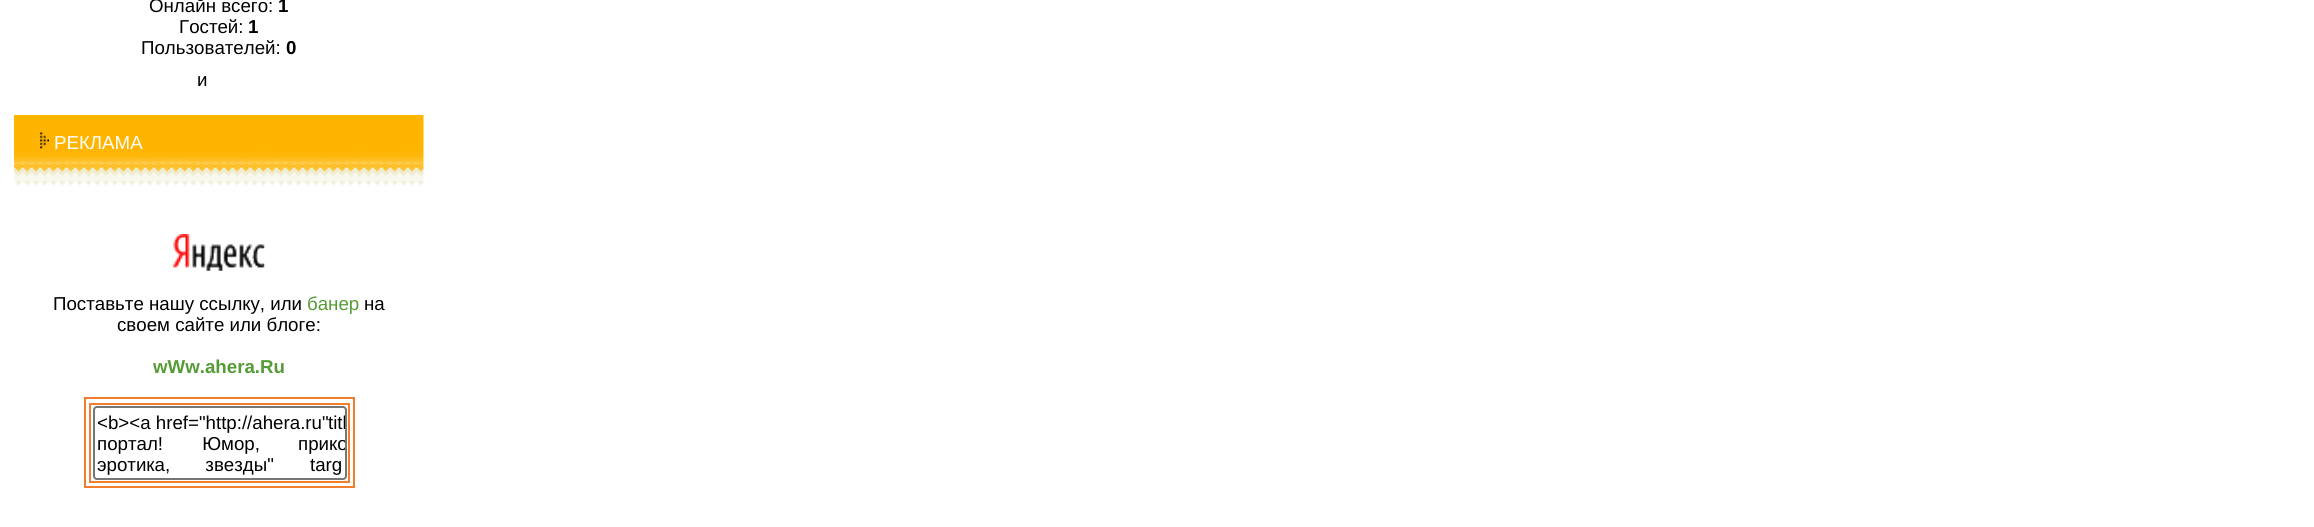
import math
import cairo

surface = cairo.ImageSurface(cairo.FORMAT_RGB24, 2314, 527)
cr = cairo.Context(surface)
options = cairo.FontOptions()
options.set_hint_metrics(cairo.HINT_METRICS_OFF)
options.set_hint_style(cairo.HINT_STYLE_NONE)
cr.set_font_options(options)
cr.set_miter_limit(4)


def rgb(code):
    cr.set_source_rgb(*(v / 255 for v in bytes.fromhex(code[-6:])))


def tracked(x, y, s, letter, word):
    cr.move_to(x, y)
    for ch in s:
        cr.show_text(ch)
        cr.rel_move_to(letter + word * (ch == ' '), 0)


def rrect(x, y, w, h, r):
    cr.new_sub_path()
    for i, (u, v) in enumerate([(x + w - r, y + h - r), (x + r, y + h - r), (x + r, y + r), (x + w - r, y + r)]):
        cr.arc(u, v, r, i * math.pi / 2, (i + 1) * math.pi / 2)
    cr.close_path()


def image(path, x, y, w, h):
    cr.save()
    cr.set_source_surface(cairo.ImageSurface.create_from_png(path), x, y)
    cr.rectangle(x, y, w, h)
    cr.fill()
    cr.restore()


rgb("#ffffff")
cr.paint()
image("img/1.png", 14, 115, 410, 71)
image("img/2.png", 40, 132, 9, 17)
image("img/3.png", 173, 234, 92, 37)
cr.rectangle(85, 398, 269, 89)
rgb("#f27d2e")
cr.stroke()
cr.rectangle(90, 404, 259, 78)
cr.stroke()
rrect(94, 407, 252, 72, 3)
rgb("#767676")
cr.stroke()
cr.select_font_face("Liberation Sans")
cr.set_font_size(18.7)
rgb("#000000")
cr.move_to(149, 12)
cr.show_text("Онлайн всего:")
cr.select_font_face("Liberation Sans", cairo.FONT_SLANT_NORMAL, cairo.FONT_WEIGHT_BOLD)
cr.move_to(278, 12)
cr.show_text("1")
cr.select_font_face("Liberation Sans")
cr.move_to(179, 33)
cr.show_text("Гостей:")
cr.select_font_face("Liberation Sans", cairo.FONT_SLANT_NORMAL, cairo.FONT_WEIGHT_BOLD)
cr.move_to(248, 33)
cr.show_text("1")
cr.select_font_face("Liberation Sans")
cr.move_to(141, 54)
cr.show_text("Пользователей:")
cr.select_font_face("Liberation Sans", cairo.FONT_SLANT_NORMAL, cairo.FONT_WEIGHT_BOLD)
cr.move_to(286, 54)
cr.show_text("0")
cr.select_font_face("Liberation Sans")
cr.move_to(197, 86)
cr.show_text("и")
rgb("#ffffff")
cr.move_to(54, 149)
cr.show_text("РЕКЛАМА")
rgb("#000000")
cr.move_to(53, 310)
cr.show_text("Поставьте нашу ссылку, или")
rgb("#559b36")
cr.move_to(307, 310)
cr.show_text("банер")
rgb("#000000")
cr.move_to(364, 310)
cr.show_text("на")
cr.move_to(117, 331)
cr.show_text("своем сайте или блоге:")
cr.select_font_face("Liberation Sans", cairo.FONT_SLANT_NORMAL, cairo.FONT_WEIGHT_BOLD)
rgb("#559b36")
cr.move_to(153, 373)
cr.show_text("wWw.ahera.Ru")
cr.select_font_face("Liberation Sans")
rgb("#000000")
cr.move_to(97, 429)
cr.show_text("<b><a href=\"http://ahera.ru\"")
cr.save()
cr.rectangle(95, 408, 250, 70)
cr.clip()
cr.move_to(328, 429)
cr.show_text("titl")
cr.restore()
tracked(97, 450, "портал! Юмор,", 0, 34)
cr.save()
cr.rectangle(95, 408, 250, 70)
cr.clip()
cr.move_to(298, 450)
cr.show_text("прико")
cr.restore()
tracked(97, 471, "эротика, звезды\"", 0, 30)
cr.move_to(310, 471)
cr.show_text("targ")
surface.write_to_png("page.png")
